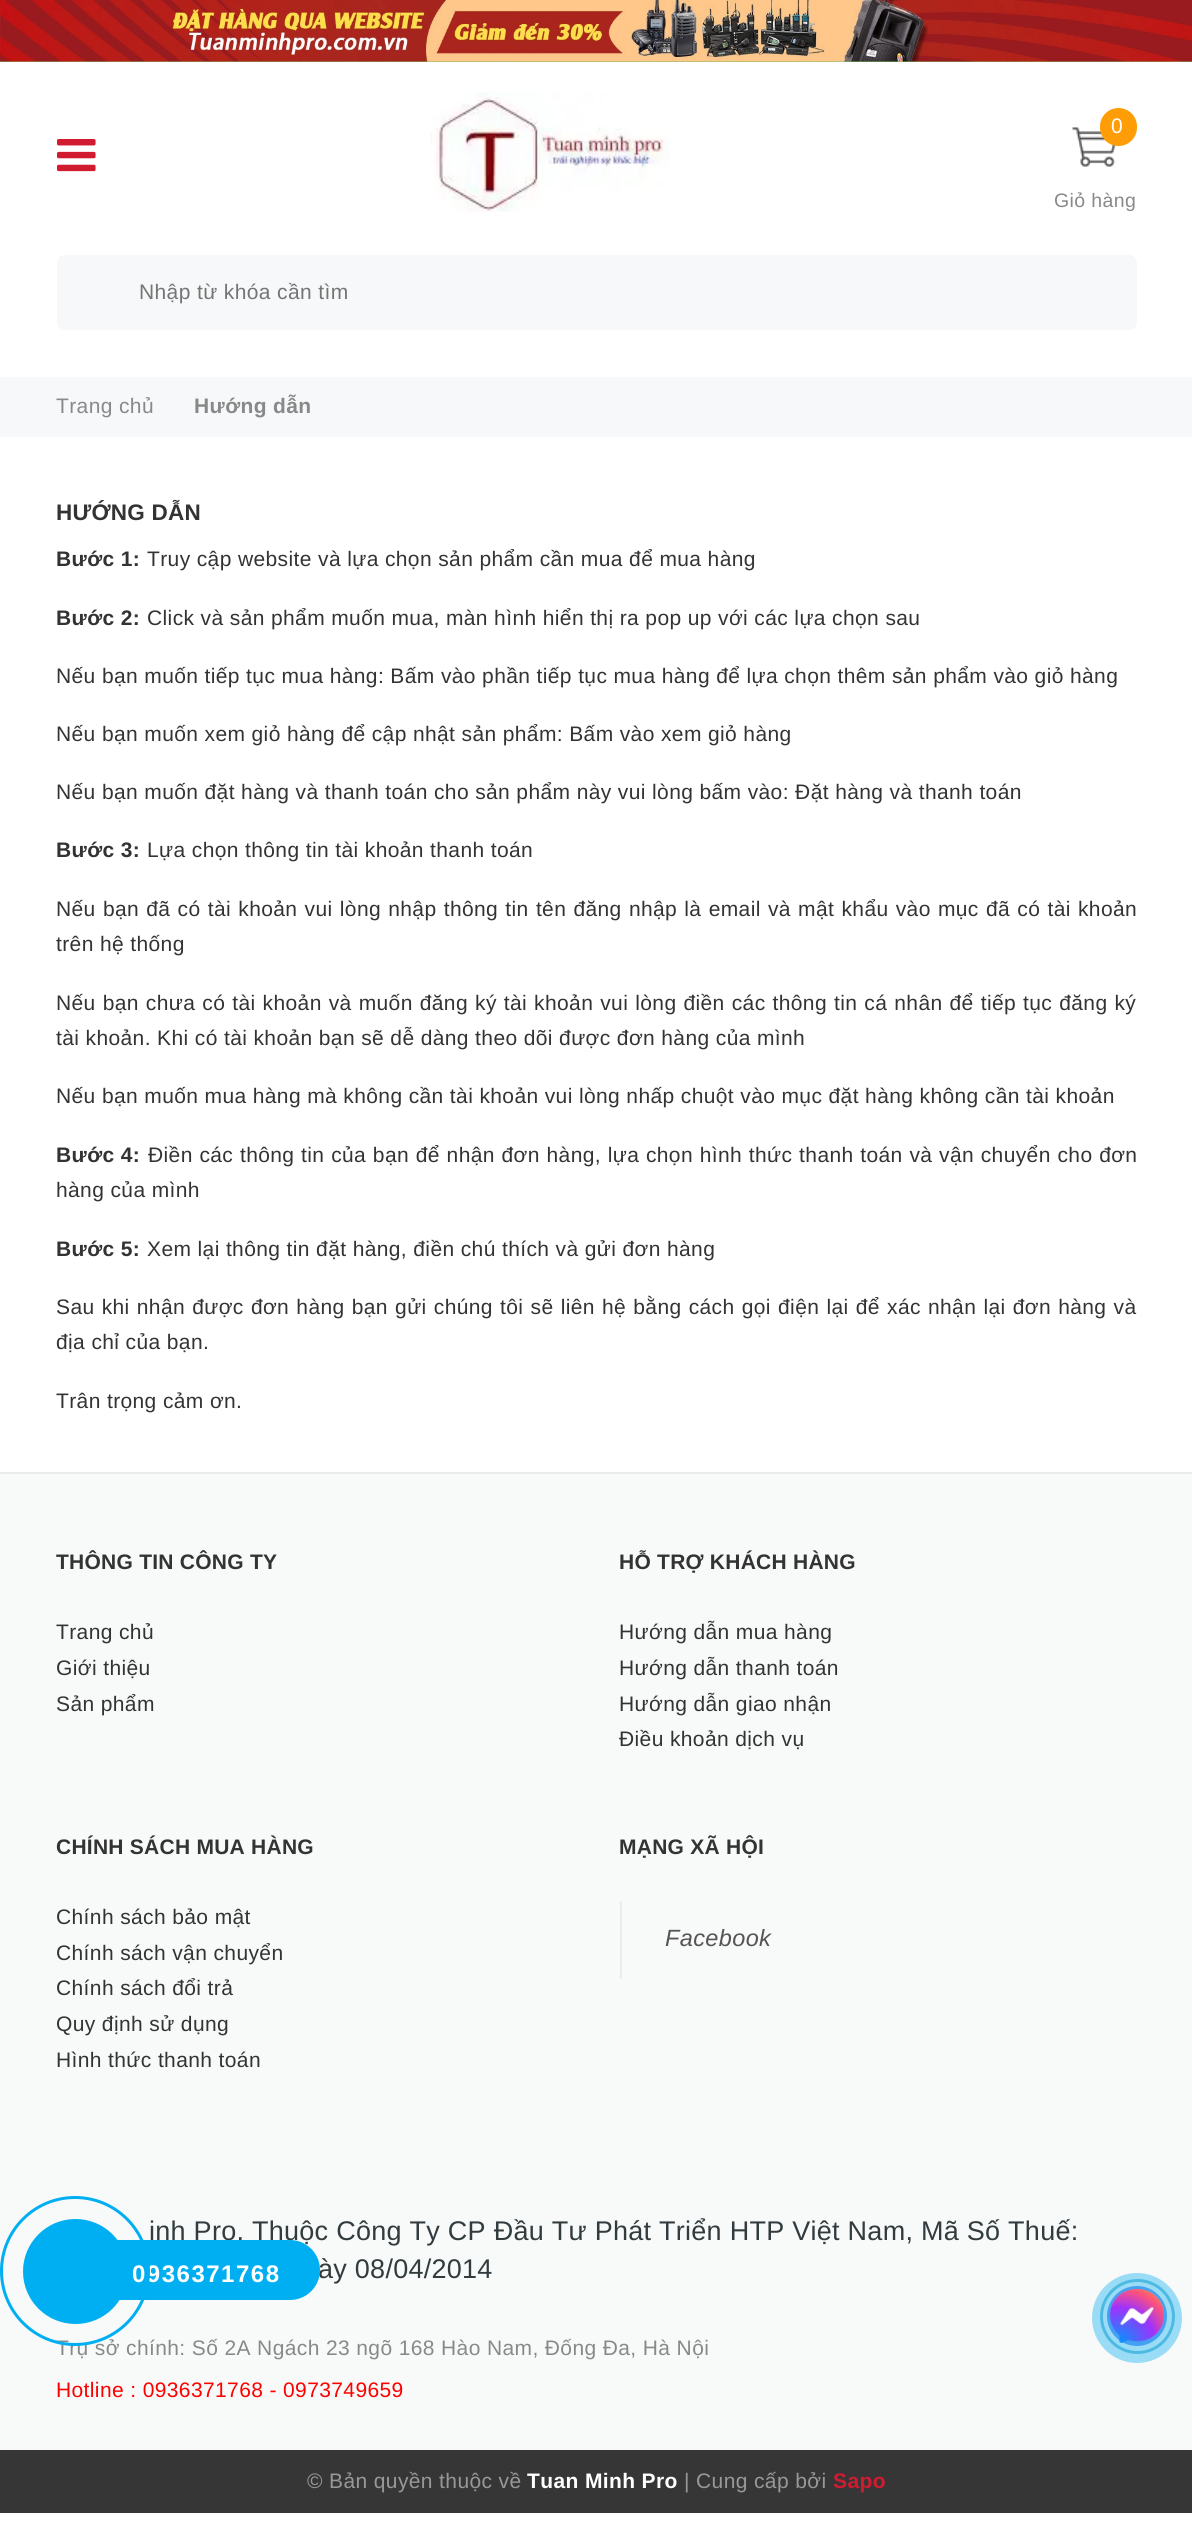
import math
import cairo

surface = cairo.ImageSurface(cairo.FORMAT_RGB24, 1192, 2526)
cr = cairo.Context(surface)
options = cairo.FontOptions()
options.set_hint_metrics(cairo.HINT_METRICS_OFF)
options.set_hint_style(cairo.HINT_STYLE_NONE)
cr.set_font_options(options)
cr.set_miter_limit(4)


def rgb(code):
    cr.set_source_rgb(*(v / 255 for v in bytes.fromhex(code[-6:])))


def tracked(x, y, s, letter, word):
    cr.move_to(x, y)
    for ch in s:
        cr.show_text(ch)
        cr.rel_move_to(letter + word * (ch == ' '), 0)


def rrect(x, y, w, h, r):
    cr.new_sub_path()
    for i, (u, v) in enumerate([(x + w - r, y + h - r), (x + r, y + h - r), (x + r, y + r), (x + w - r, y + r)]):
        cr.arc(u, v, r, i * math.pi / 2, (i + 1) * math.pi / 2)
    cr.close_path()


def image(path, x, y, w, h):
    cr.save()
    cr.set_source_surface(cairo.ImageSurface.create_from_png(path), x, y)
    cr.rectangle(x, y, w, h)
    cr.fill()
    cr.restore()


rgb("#ffffff")
cr.paint()
rgb("#7bbd5a")
cr.rectangle(0, 61, 1192, 1)
cr.fill()
image("img/1.png", 0, 0, 1192, 62)
image("img/2.png", 430, 91, 240, 121)
image("img/3.png", 1072, 127, 44, 40)
rgb("#ff9d06")
rrect(1100, 108, 37, 38, 18.5)
cr.fill()
image("img/4.png", 57, 139, 39, 33)
rgb("#f7f8f9")
rrect(57, 255, 1080, 75, 8)
cr.fill()
for x, y, w, h, color in [
    (0, 377, 1192, 60, "#f7f8f9"),
    (0, 1474, 1192, 976, "#f8f9f9"),
    (0, 1472, 1192, 2, "#ebebeb"),
    (620, 1901, 2, 78, "#ebebeb"),
    (0, 2450, 1192, 63, "#363636"),
]:
    rgb(color)
    cr.rectangle(x, y, w, h)
    cr.fill()
cr.arc(1137.5, 2316.5, 36, 0, 2 * math.pi)
rgb("#7cc1d9")
cr.set_line_width(3)
cr.stroke()
cr.set_source_rgba(0, 0.686, 0.949, 0.38)
cr.arc(1137, 2318, 45, 0, 2 * math.pi)
cr.fill()
rgb("#43a1f3")
cr.arc(1137, 2316, 30, 0, 2 * math.pi)
cr.fill()
image("img/5.png", 1109, 2289, 55, 54)
cr.select_font_face("Liberation Sans")
cr.set_font_size(21)
rgb("#ffffff")
tracked(1111, 133, "0", 0.38, 0)
cr.set_font_size(19.5)
rgb("#898989")
tracked(1054, 207, "Giỏ hàng", 0.38, 0)
cr.set_font_size(21)
rgb("#757575")
tracked(139, 299, "Nhập từ khóa cần tìm", 0.38, 0)
rgb("#898989")
tracked(56, 413, "Trang chủ", 0.38, 0)
cr.select_font_face("Liberation Sans", cairo.FONT_SLANT_NORMAL, cairo.FONT_WEIGHT_BOLD)
tracked(194, 413, "Hướng dẫn", 0.38, 0)
cr.set_font_size(22.5)
rgb("#333333")
tracked(56, 520, "HƯỚNG DẪN", 0.25, 0)
cr.set_font_size(21)
tracked(56, 566, "Bước 1:", 0.38, 0)
cr.select_font_face("Liberation Sans")
tracked(147, 566, "Truy cập website và lựa chọn sản phẩm cần mua để mua hàng", 0.38, 0)
cr.select_font_face("Liberation Sans", cairo.FONT_SLANT_NORMAL, cairo.FONT_WEIGHT_BOLD)
tracked(56, 625, "Bước 2:", 0.38, 0)
cr.select_font_face("Liberation Sans")
for x, y, s in [
    (147, 625, "Click và sản phẩm muốn mua, màn hình hiển thị ra pop up với các lựa chọn sau"),
    (56, 683, "Nếu bạn muốn tiếp tục mua hàng: Bấm vào phần tiếp tục mua hàng để lựa chọn thêm sản phẩm vào giỏ hàng"),
    (56, 741, "Nếu bạn muốn xem giỏ hàng để cập nhật sản phẩm: Bấm vào xem giỏ hàng"),
    (56, 799, "Nếu bạn muốn đặt hàng và thanh toán cho sản phẩm này vui lòng bấm vào: Đặt hàng và thanh toán"),
]:
    tracked(x, y, s, 0.38, 0)
cr.select_font_face("Liberation Sans", cairo.FONT_SLANT_NORMAL, cairo.FONT_WEIGHT_BOLD)
tracked(56, 857, "Bước 3:", 0.38, 0)
cr.select_font_face("Liberation Sans")
tracked(147, 857, "Lựa chọn thông tin tài khoản thanh toán", 0.38, 0)
tracked(56, 916, "Nếu bạn đã có tài khoản vui lòng nhập thông tin tên đăng nhập là email và mật khẩu vào mục đã có tài khoản", 0.38, 1)
tracked(56, 951, "trên hệ thống", 0.38, 0)
tracked(56, 1010, "Nếu bạn chưa có tài khoản và muốn đăng ký tài khoản vui lòng điền các thông tin cá nhân để tiếp tục đăng ký", 0.38, 0.8)
tracked(56, 1045, "tài khoản. Khi có tài khoản bạn sẽ dễ dàng theo dõi được đơn hàng của mình", 0.38, 0)
tracked(56, 1103, "Nếu bạn muốn mua hàng mà không cần tài khoản vui lòng nhấp chuột vào mục đặt hàng không cần tài khoản", 0.38, 0)
cr.select_font_face("Liberation Sans", cairo.FONT_SLANT_NORMAL, cairo.FONT_WEIGHT_BOLD)
tracked(56, 1162, "Bước 4:", 0.38, 0)
cr.select_font_face("Liberation Sans")
tracked(148, 1162, "Điền các thông tin của bạn để nhận đơn hàng, lựa chọn hình thức thanh toán và vận chuyển cho đơn", 0.38, 0.5)
tracked(56, 1197, "hàng của mình", 0.38, 0)
cr.select_font_face("Liberation Sans", cairo.FONT_SLANT_NORMAL, cairo.FONT_WEIGHT_BOLD)
tracked(56, 1256, "Bước 5:", 0.38, 0)
cr.select_font_face("Liberation Sans")
tracked(147, 1256, "Xem lại thông tin đặt hàng, điền chú thích và gửi đơn hàng", 0.38, 0)
tracked(56, 1314, "Sau khi nhận được đơn hàng bạn gửi chúng tôi sẽ liên hệ bằng cách gọi điện lại để xác nhận lại đơn hàng và", 0.38, 0.95)
tracked(56, 1349, "địa chỉ của bạn.", 0.38, 0)
tracked(56, 1408, "Trân trọng cảm ơn.", 0.38, 0)
cr.select_font_face("Liberation Sans", cairo.FONT_SLANT_NORMAL, cairo.FONT_WEIGHT_BOLD)
tracked(56, 1569, "THÔNG TIN CÔNG TY", 0.25, 0)
cr.select_font_face("Liberation Sans")
for x, y, s in [
    (56, 1639, "Trang chủ"),
    (56, 1675, "Giới thiệu"),
    (56, 1711, "Sản phẩm"),
]:
    tracked(x, y, s, 0.38, 0)
cr.select_font_face("Liberation Sans", cairo.FONT_SLANT_NORMAL, cairo.FONT_WEIGHT_BOLD)
tracked(619, 1569, "HỖ TRỢ KHÁCH HÀNG", 0.25, 0)
cr.select_font_face("Liberation Sans")
for x, y, s in [
    (619, 1639, "Hướng dẫn mua hàng"),
    (619, 1675, "Hướng dẫn thanh toán"),
    (619, 1711, "Hướng dẫn giao nhận"),
    (619, 1746, "Điều khoản dịch vụ"),
]:
    tracked(x, y, s, 0.38, 0)
cr.select_font_face("Liberation Sans", cairo.FONT_SLANT_NORMAL, cairo.FONT_WEIGHT_BOLD)
tracked(56, 1854, "CHÍNH SÁCH MUA HÀNG", 0.25, 0)
cr.select_font_face("Liberation Sans")
for x, y, s in [
    (56, 1924, "Chính sách bảo mật"),
    (56, 1960, "Chính sách vận chuyển"),
    (56, 1995, "Chính sách đổi trả"),
    (56, 2031, "Quy định sử dụng"),
    (56, 2067, "Hình thức thanh toán"),
]:
    tracked(x, y, s, 0.38, 0)
cr.select_font_face("Liberation Sans", cairo.FONT_SLANT_NORMAL, cairo.FONT_WEIGHT_BOLD)
tracked(619, 1854, "MẠNG XÃ HỘI", 0.25, 0)
cr.select_font_face("Liberation Sans", cairo.FONT_SLANT_ITALIC)
cr.set_font_size(23.5)
rgb("#575454")
tracked(665, 1946, "Facebook", 0.38, 0)
cr.select_font_face("Liberation Sans")
cr.set_font_size(27)
rgb("#323c3f")
tracked(149, 2240, "inh Pro, Thuộc Công Ty CP Đầu Tư Phát Triển HTP Việt Nam, Mã Số Thuế:", 0.27, 0)
tracked(318, 2278, "ày 08/04/2014", 0.27, 0)
cr.set_font_size(21)
rgb("#898989")
tracked(56, 2355, "Trụ sở chính: Số 2A Ngách 23 ngõ 168 Hào Nam, Đống Đa, Hà Nội", 0.38, 0)
rgb("#ff0000")
tracked(56, 2397, "Hotline : 0936371768 - 0973749659", 0.38, 0)
rgb("#989898")
tracked(307, 2488, "© Bản quyền thuộc về", 0.38, 0)
cr.select_font_face("Liberation Sans", cairo.FONT_SLANT_NORMAL, cairo.FONT_WEIGHT_BOLD)
rgb("#ffffff")
tracked(527, 2488, "Tuan Minh Pro", 0.38, 0)
cr.select_font_face("Liberation Sans")
rgb("#989898")
tracked(684, 2488, "| Cung cấp bởi", 0.38, 0)
cr.select_font_face("Liberation Sans", cairo.FONT_SLANT_NORMAL, cairo.FONT_WEIGHT_BOLD)
rgb("#d11b31")
tracked(833, 2488, "Sapo", 0.38, 0)
rgb("#00aff2")
rrect(42, 2240, 278, 60, 30)
cr.fill()
cr.set_font_size(24)
rgb("#ffffff")
tracked(132, 2282, "0936371768", 1.5, 0)
cr.new_path()
cr.arc(75, 2271, 73.5, 0, 2 * math.pi)
rgb("#00aff2")
cr.stroke()
cr.arc(75.5, 2271.5, 51, 0, 2 * math.pi)
cr.fill_preserve()
cr.stroke()
surface.write_to_png("page.png")
